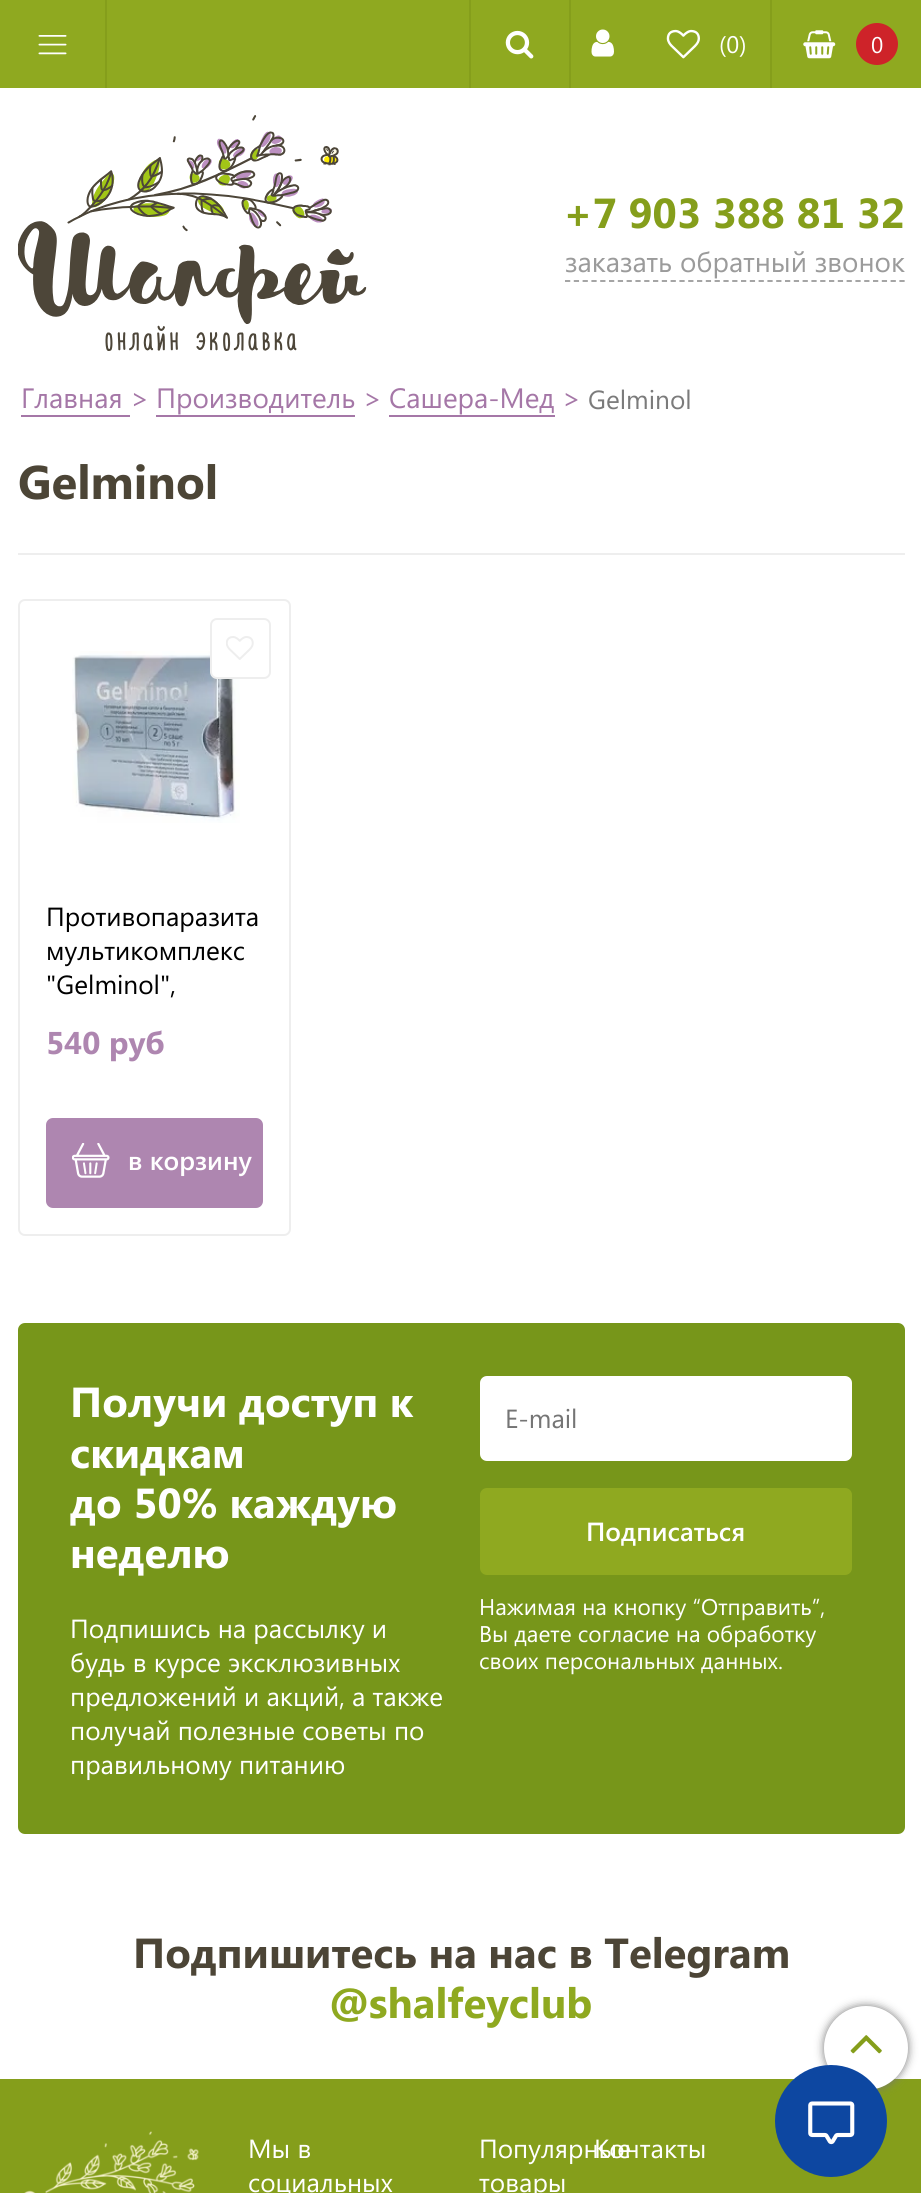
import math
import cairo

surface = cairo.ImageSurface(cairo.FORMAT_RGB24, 921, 2193)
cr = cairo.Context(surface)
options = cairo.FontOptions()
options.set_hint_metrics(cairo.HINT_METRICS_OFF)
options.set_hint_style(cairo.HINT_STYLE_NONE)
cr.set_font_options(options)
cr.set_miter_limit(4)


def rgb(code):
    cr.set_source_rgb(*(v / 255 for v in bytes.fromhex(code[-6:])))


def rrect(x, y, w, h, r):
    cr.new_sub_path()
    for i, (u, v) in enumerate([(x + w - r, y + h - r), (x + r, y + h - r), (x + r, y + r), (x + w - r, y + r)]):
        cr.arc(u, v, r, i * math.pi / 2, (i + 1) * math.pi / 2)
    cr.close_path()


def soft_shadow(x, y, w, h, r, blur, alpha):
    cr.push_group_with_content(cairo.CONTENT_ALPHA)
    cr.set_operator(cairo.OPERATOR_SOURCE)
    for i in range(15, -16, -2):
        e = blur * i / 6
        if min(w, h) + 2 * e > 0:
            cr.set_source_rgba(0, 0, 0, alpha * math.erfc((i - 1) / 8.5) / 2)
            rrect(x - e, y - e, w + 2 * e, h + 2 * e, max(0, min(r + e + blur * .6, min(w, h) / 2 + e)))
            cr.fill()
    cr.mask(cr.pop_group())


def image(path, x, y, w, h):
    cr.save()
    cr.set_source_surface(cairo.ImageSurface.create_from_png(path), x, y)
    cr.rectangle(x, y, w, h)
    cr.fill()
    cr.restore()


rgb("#ffffff")
cr.paint()
rgb("#8fa920")
cr.rectangle(0, 0, 921, 88)
cr.fill()
rgb("#859e1b")
cr.rectangle(105, 0, 2, 88)
cr.fill()
image("img/1.png", 38, 35, 29, 20)
cr.rectangle(569, 0, 2, 88)
cr.fill()
cr.rectangle(469, 0, 2, 88)
cr.fill()
image("img/2.png", 505, 30, 29, 29)
image("img/3.png", 591, 29, 23, 28)
cr.rectangle(770, 0, 2, 88)
cr.fill()
image("img/4.png", 666, 29, 34, 30)
image("img/5.png", 803, 30, 33, 29)
rgb("#ce2329")
cr.arc(877, 44, 21, 0, 2 * math.pi)
cr.fill()
image("img/6.png", 18, 115, 349, 236)
cr.new_path()
cr.move_to(565, 281)
cr.line_to(905, 281)
rgb("#9b9b9b")
cr.set_line_width(1.8)
cr.set_dash([5.25, 3.55])
cr.stroke()
for x, y, w, h, color in [
    (21, 415, 109, 2, "#a577a7"),
    (156, 415, 199, 2, "#a577a7"),
    (389, 415, 166, 2, "#a577a7"),
    (18, 553, 887, 2, "#eeeeee"),
]:
    rgb(color)
    cr.rectangle(x, y, w, h)
    cr.fill()
rrect(19, 600, 271, 635, 6)
cr.set_line_width(2)
cr.set_dash([])
cr.stroke()
image("img/7.png", 72, 651, 168, 172)
rgb("#ffffff")
rrect(211, 619, 59, 59, 6)
cr.fill_preserve()
rgb("#eeeeee")
cr.stroke()
image("img/8.png", 226, 636, 28, 24)
rgb("#ae86b0")
rrect(46, 1118, 217, 90, 7)
cr.fill()
image("img/9.png", 72, 1143, 38, 35)
rgb("#77961a")
rrect(18, 1323, 887, 511, 7)
cr.fill()
rgb("#ffffff")
rrect(480, 1376, 372, 85, 7)
cr.fill()
rgb("#8fa920")
rrect(480, 1488, 372, 87, 7)
cr.fill()
rgb("#859e1b")
cr.rectangle(0, 2079, 921, 114)
cr.fill()
rgb("#777777")
soft_shadow(824, 2006, 84, 84, 42, 4.5, 1)
rgb("#ffffff")
cr.arc(866, 2048, 42, 0, 2 * math.pi)
cr.fill()
image("img/10.png", 850, 2035, 32, 19)
image("img/11.png", 24, 2131, 175, 62)
rgb("#0d47a1")
cr.arc(831, 2121, 56, 0, 2 * math.pi)
cr.fill()
image("img/12.png", 808, 2101, 47, 44)
cr.select_font_face("Segoe UI")
cr.set_font_size(24)
rgb("#ffffff")
cr.move_to(719, 53)
cr.show_text("(0)")
cr.set_font_size(22.75)
cr.move_to(871, 53)
cr.show_text("0")
cr.select_font_face("Segoe UI", cairo.FONT_SLANT_NORMAL, cairo.FONT_WEIGHT_BOLD)
cr.set_font_size(42)
rgb("#859e1b")
cr.move_to(563, 228)
cr.show_text("+7 903 388 81 32")
cr.select_font_face("Segoe UI")
cr.set_font_size(28)
rgb("#9b9b9b")
cr.move_to(565, 272)
cr.show_text("заказать обратный звонок")
rgb("#a577a7")
for x, y, s in [
    (21, 408, "Главная >"),
    (156, 408, "Производитель"),
    (363, 408, ">"),
    (389, 408, "Сашера-Мед"),
    (562, 408, ">"),
]:
    cr.move_to(x, y)
    cr.show_text(s)
cr.set_font_size(26.25)
rgb("#7b7b7b")
cr.move_to(588, 409)
cr.show_text("Gelminol")
cr.select_font_face("Segoe UI", cairo.FONT_SLANT_NORMAL, cairo.FONT_WEIGHT_BOLD)
cr.set_font_size(47.25)
rgb("#4c4536")
cr.move_to(18, 499)
cr.show_text("Gelminol")
cr.select_font_face("Segoe UI")
cr.set_font_size(26.25)
rgb("#000000")
for x, y, s in [
    (46, 926, "Противопаразита"),
    (46, 960, "мультикомплекс"),
    (46, 994, "\"Gelminol\","),
]:
    cr.move_to(x, y)
    cr.show_text(s)
cr.select_font_face("Segoe UI", cairo.FONT_SLANT_NORMAL, cairo.FONT_WEIGHT_BOLD)
cr.set_font_size(31.5)
rgb("#ae86b0")
cr.move_to(46, 1054)
cr.show_text("540 руб")
cr.select_font_face("Segoe UI SemiBold")
cr.set_font_size(26.25)
rgb("#ffffff")
cr.move_to(128, 1170)
cr.show_text("в корзину")
cr.select_font_face("Segoe UI", cairo.FONT_SLANT_NORMAL, cairo.FONT_WEIGHT_BOLD)
cr.set_font_size(42)
for x, y, s in [
    (70, 1417, "Получи доступ к"),
    (70, 1468, "скидкам"),
    (70, 1518, "до 50% каждую"),
    (70, 1568, "неделю"),
]:
    cr.move_to(x, y)
    cr.show_text(s)
cr.select_font_face("Segoe UI")
cr.set_font_size(26.25)
for x, y, s in [
    (70, 1638, "Подпишись на рассылку и"),
    (70, 1672, "будь в курсе эксклюзивных"),
    (70, 1706, "предложений и акций, а также"),
    (70, 1740, "получай полезные советы по"),
    (70, 1774, "правильному питанию"),
]:
    cr.move_to(x, y)
    cr.show_text(s)
rgb("#757575")
cr.move_to(505, 1428)
cr.show_text("E-mail")
cr.select_font_face("Segoe UI SemiBold")
rgb("#ffffff")
cr.move_to(586, 1541)
cr.show_text("Подписаться")
cr.select_font_face("Segoe UI")
cr.set_font_size(22.75)
for x, y, s in [
    (479, 1615, "Нажимая на кнопку “Отправить”,"),
    (479, 1642, "Вы даете согласие на обработку"),
    (479, 1669, "своих персональных данных."),
]:
    cr.move_to(x, y)
    cr.show_text(s)
cr.select_font_face("Segoe UI", cairo.FONT_SLANT_NORMAL, cairo.FONT_WEIGHT_BOLD)
cr.set_font_size(42)
rgb("#4c4536")
cr.move_to(133, 1968)
cr.show_text("Подпишитесь на нас в Telegram")
rgb("#8fa920")
cr.move_to(329, 2018)
cr.show_text("@shalfeyclub")
cr.select_font_face("Segoe UI")
cr.set_font_size(26.25)
rgb("#ffffff")
for x, y, s in [
    (248, 2158, "Мы в"),
    (248, 2192, "социальных"),
    (479, 2158, "Популярные"),
    (479, 2192, "товары"),
    (594, 2158, "Контакты"),
]:
    cr.move_to(x, y)
    cr.show_text(s)
surface.write_to_png("page.png")
